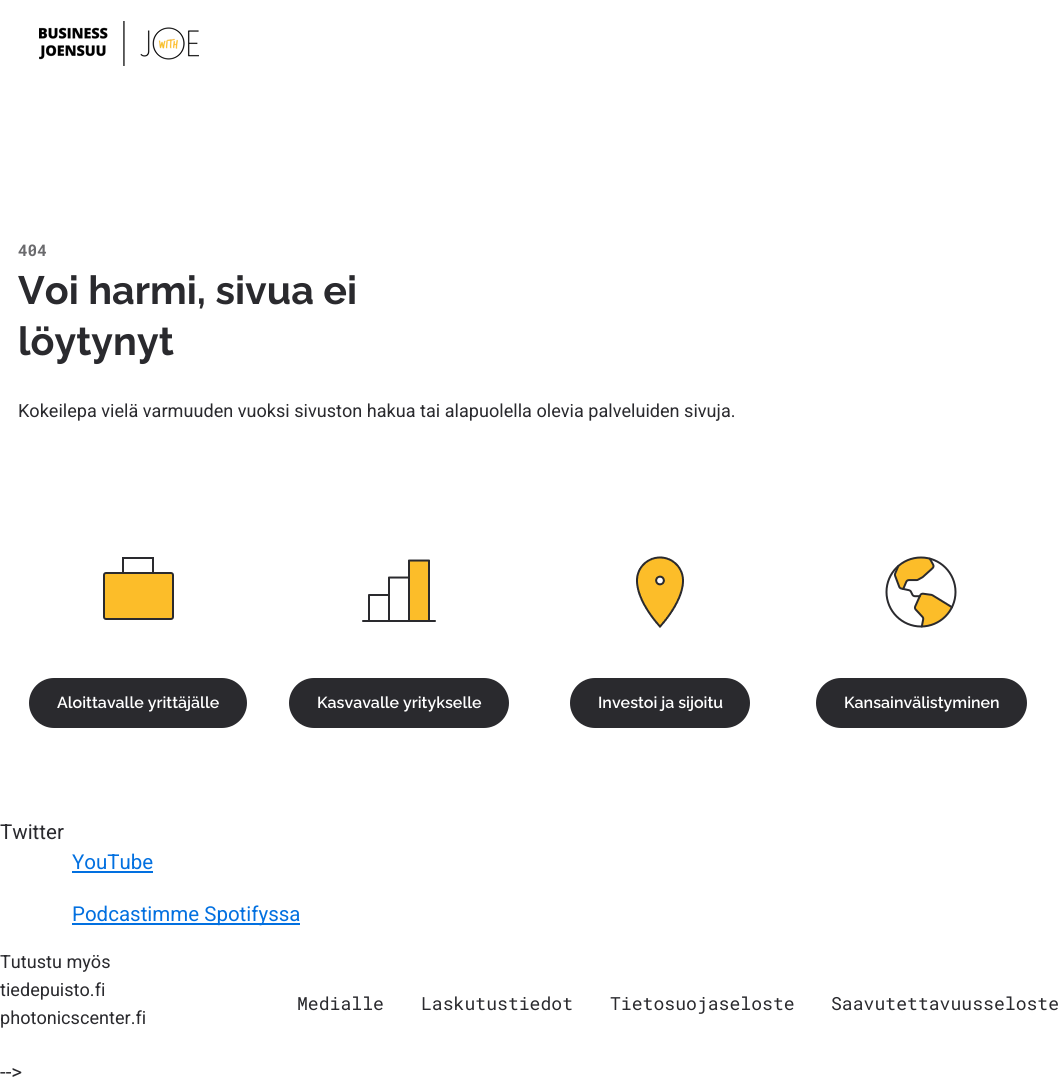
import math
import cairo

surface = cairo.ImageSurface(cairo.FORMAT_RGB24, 1059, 1092)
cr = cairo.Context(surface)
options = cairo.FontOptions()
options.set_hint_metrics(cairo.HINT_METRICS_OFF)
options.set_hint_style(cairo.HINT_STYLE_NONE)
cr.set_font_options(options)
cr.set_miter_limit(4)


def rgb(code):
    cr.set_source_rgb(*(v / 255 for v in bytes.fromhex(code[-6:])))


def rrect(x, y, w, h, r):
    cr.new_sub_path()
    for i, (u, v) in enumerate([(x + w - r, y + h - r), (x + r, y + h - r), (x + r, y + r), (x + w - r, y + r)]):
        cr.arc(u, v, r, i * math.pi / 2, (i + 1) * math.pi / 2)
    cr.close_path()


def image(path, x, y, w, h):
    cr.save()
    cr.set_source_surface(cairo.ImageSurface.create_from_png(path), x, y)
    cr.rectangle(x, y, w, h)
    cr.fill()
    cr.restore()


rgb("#ffffff")
cr.paint()
image("img/1.png", 39, 21, 160, 45)
rgb("#fcbd29")
rrect(104, 573, 69, 46, 2)
cr.fill_preserve()
rgb("#2a2a2e")
cr.stroke()
cr.rectangle(123, 558, 30, 15)
cr.stroke()
rrect(29, 678, 218, 50, 25)
cr.fill()
cr.new_path()
cr.move_to(369, 621)
cr.line_to(369, 595)
cr.line_to(389, 595)
cr.set_line_cap(cairo.LINE_CAP_ROUND)
cr.set_line_join(cairo.LINE_JOIN_ROUND)
cr.stroke()
cr.new_path()
cr.move_to(435, 621)
cr.line_to(363, 621)
cr.stroke()
cr.new_path()
cr.move_to(389, 621)
cr.line_to(389, 577.5)
cr.line_to(409, 577.5)
cr.stroke()
rgb("#fcbd29")
cr.rectangle(410, 561, 18, 59)
cr.fill()
cr.new_path()
cr.move_to(429, 560.5)
cr.line_to(409, 560.5)
cr.line_to(409, 621)
cr.line_to(429, 621)
cr.close_path()
rgb("#2a2a2e")
cr.stroke()
rrect(289, 678, 220, 50, 25)
cr.fill()
image("img/2.png", 636, 556, 48, 72)
rrect(570, 678, 180, 50, 25)
cr.fill()
image("img/3.png", 885, 556, 72, 72)
rrect(816, 678, 211, 50, 25)
cr.fill()
rgb("#0270e0")
cr.rectangle(72, 871, 81, 2)
cr.fill()
cr.rectangle(72, 923, 228, 2)
cr.fill()
cr.select_font_face("Roboto Mono", cairo.FONT_SLANT_NORMAL, cairo.FONT_WEIGHT_BOLD)
cr.set_font_size(16)
rgb("#6a6a6d")
cr.move_to(18, 256)
cr.show_text("404")
cr.select_font_face("Raleway", cairo.FONT_SLANT_NORMAL, cairo.FONT_WEIGHT_BOLD)
cr.set_font_size(39.5)
rgb("#2a2a2e")
cr.move_to(18, 304)
cr.show_text("Voi harmi, sivua ei")
cr.move_to(18, 355)
cr.show_text("löytynyt")
cr.select_font_face("Roboto")
cr.set_font_size(18.1)
cr.move_to(18, 417)
cr.show_text("Kokeilepa vielä varmuuden vuoksi sivuston hakua tai alapuolella olevia palveluiden sivuja.")
cr.select_font_face("Raleway SemiBold")
cr.set_font_size(16)
rgb("#ffffff")
for x, y, s in [
    (57, 708, "Aloittavalle yrittäjälle"),
    (317, 708, "Kasvavalle yritykselle"),
    (598, 708, "Investoi ja sijoitu"),
    (844, 708, "Kansainvälistyminen"),
]:
    cr.move_to(x, y)
    cr.show_text(s)
cr.select_font_face("Roboto")
cr.set_font_size(20.5)
rgb("#2a2a2e")
cr.move_to(0, 839)
cr.show_text("Twitter")
rgb("#0270e0")
cr.move_to(72, 869)
cr.show_text("YouTube")
cr.move_to(72, 921)
cr.show_text("Podcastimme Spotifyssa")
cr.set_font_size(18.1)
rgb("#2a2a2e")
for x, y, s in [
    (0, 968, "Tutustu myös"),
    (0, 996, "tiedepuisto.fi"),
    (0, 1024, "photonicscenter.fi"),
]:
    cr.move_to(x, y)
    cr.show_text(s)
cr.select_font_face("Roboto Mono")
for x, y, s in [
    (297, 1010, "Medialle"),
    (421, 1010, "Laskutustiedot"),
    (610, 1010, "Tietosuojaseloste"),
    (831, 1010, "Saavutettavuusseloste"),
]:
    cr.move_to(x, y)
    cr.show_text(s)
cr.select_font_face("Roboto")
cr.set_font_size(20.5)
cr.move_to(0, 1079)
cr.show_text("-->")
surface.write_to_png("page.png")
